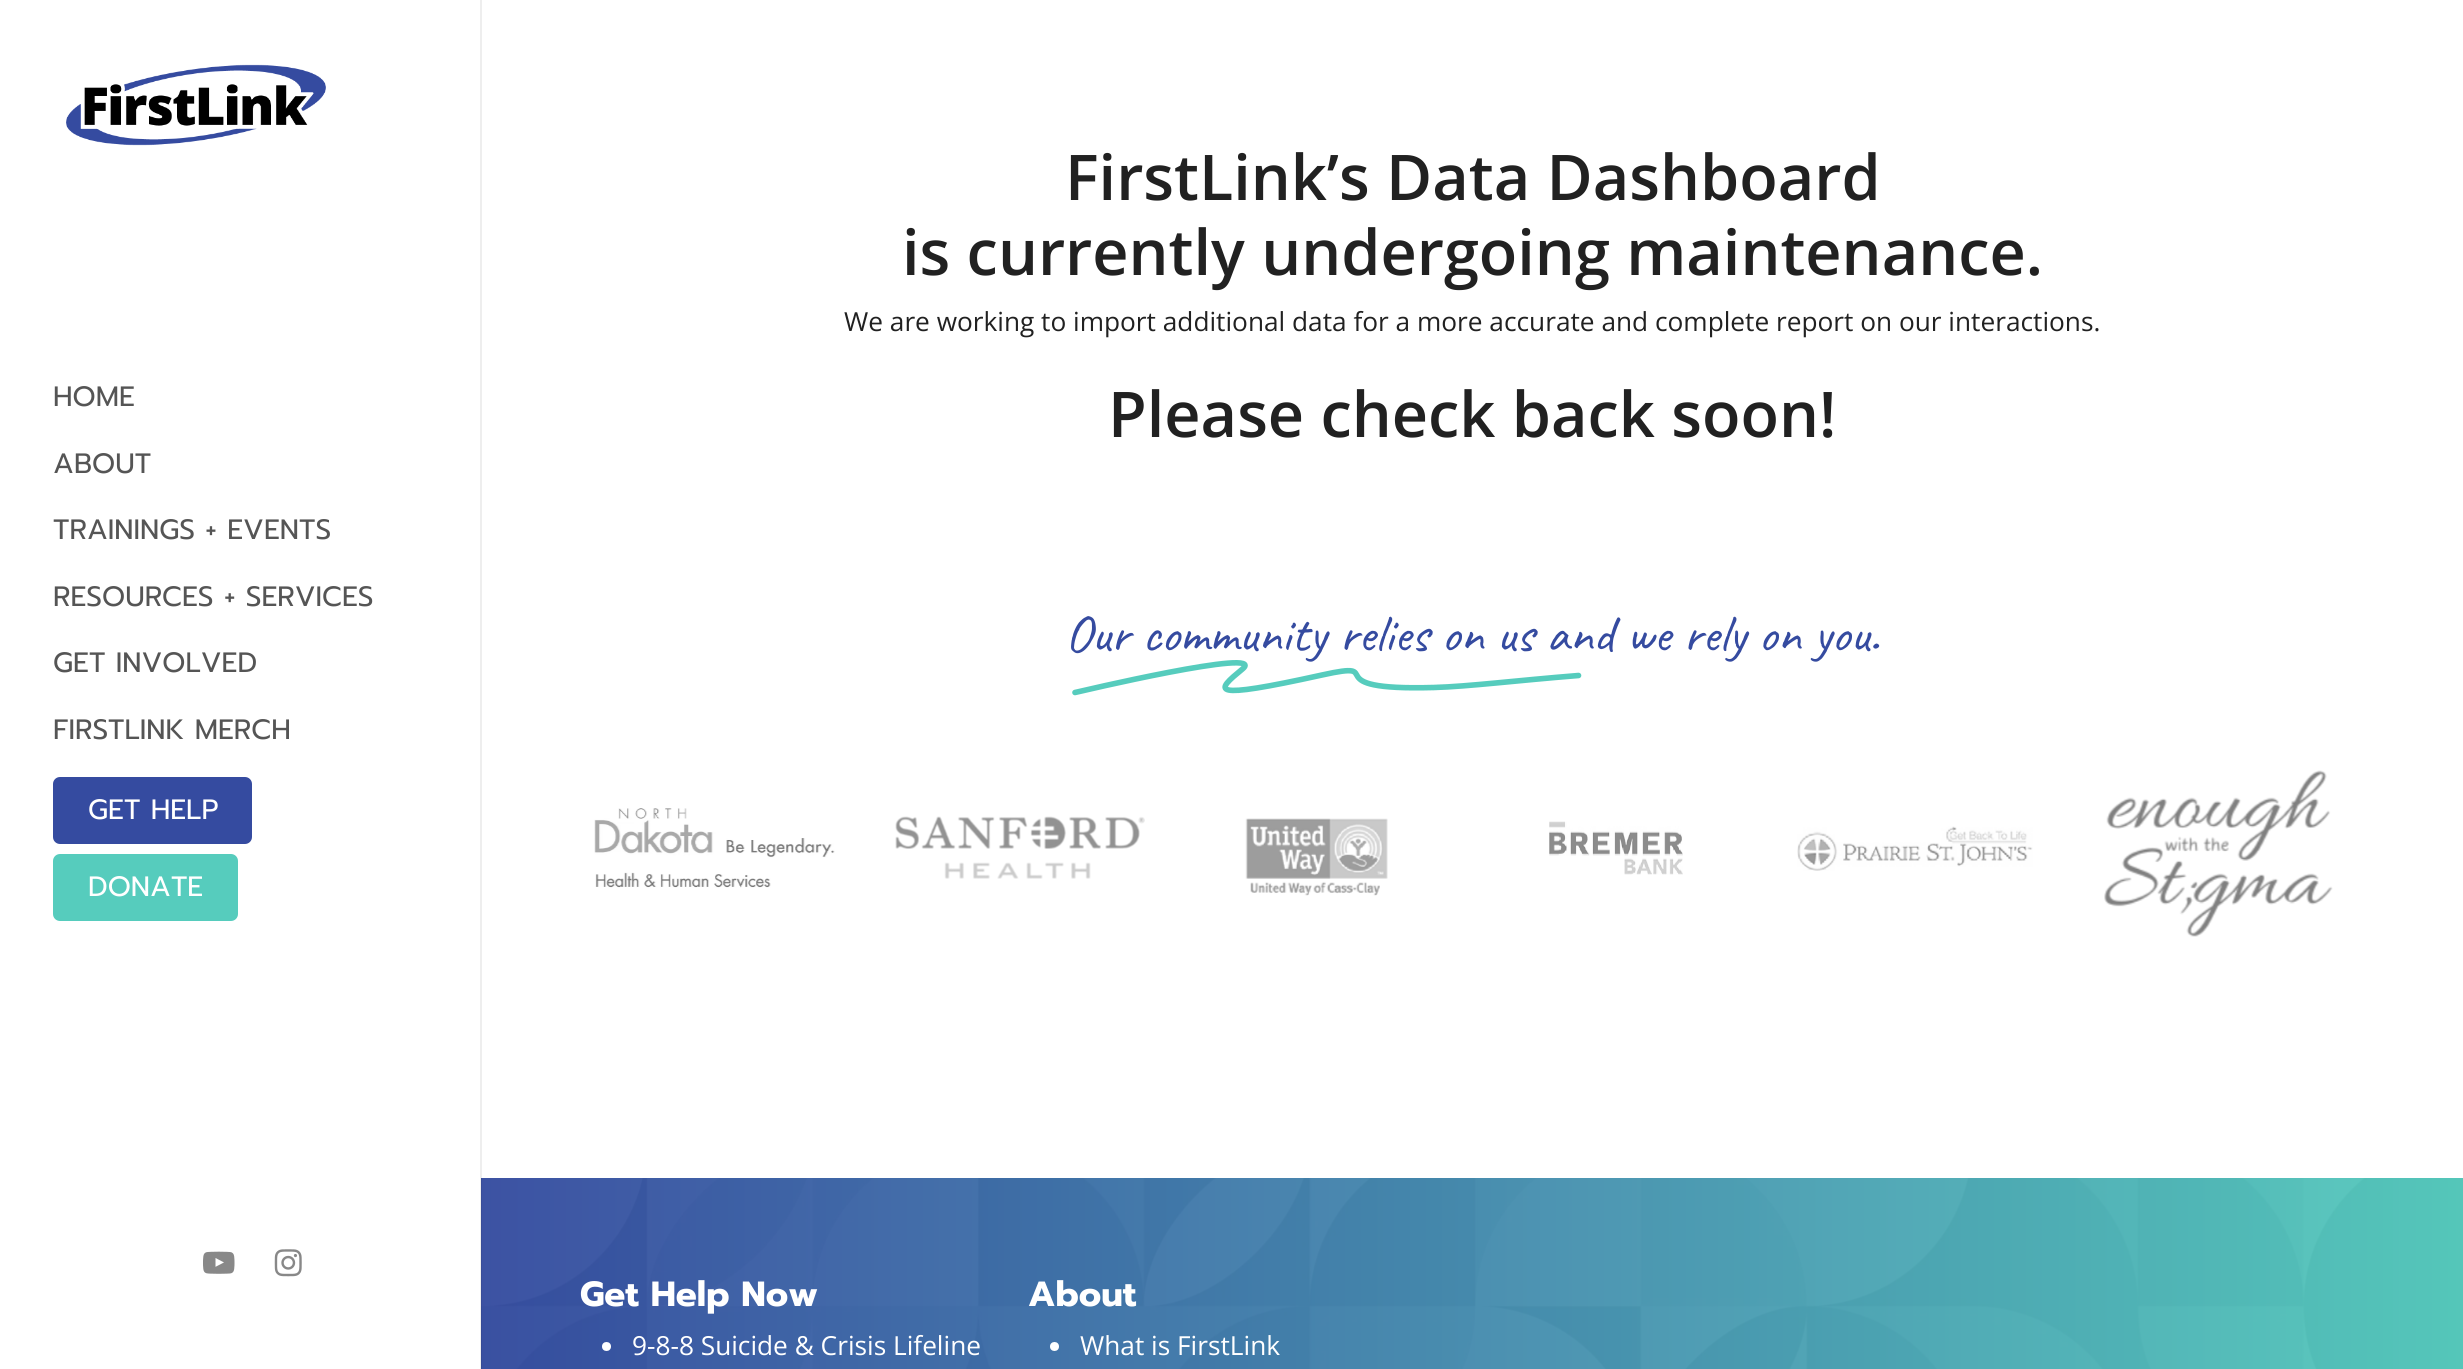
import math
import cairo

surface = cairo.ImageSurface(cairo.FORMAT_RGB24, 2463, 1369)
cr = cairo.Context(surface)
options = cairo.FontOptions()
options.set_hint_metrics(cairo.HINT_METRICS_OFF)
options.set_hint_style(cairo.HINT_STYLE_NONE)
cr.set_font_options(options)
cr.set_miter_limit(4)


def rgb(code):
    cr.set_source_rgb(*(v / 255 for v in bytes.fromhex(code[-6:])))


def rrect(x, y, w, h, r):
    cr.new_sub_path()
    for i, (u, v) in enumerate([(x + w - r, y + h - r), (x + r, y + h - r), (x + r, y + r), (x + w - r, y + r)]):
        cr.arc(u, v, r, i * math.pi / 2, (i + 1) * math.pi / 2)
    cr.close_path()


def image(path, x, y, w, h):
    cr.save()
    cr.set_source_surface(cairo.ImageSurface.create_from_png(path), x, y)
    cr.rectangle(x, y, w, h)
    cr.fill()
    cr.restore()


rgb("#ffffff")
cr.paint()
image("img/10.png", 481, 1178, 1982, 191)
cr.set_source_rgba(0, 0, 0, 0.07)
cr.rectangle(480, 0, 2, 1369)
cr.fill()
image("img/1.png", 66, 64, 260, 82)
rgb("#354ba0")
rrect(53, 777, 199, 67, 7)
cr.fill()
rgb("#56ccbd")
rrect(53, 854, 185, 67, 7)
cr.fill()
image("img/2.png", 203, 1251, 32, 23)
image("img/3.png", 274, 1249, 28, 28)
cr.new_path()
cr.move_to(1075, 692.5)
cr.curve_to(1075, 692.5, 1269.5, 646.5, 1242.5, 669)
cr.curve_to(1215, 691.5, 1206.5, 700.5, 1322, 675)
cr.curve_to(1392, 659.5, 1310, 691, 1434, 687.5)
cr.curve_to(1468.5, 686.5, 1516, 680.5, 1578.5, 675.5)
cr.set_line_width(5.6)
cr.set_line_cap(cairo.LINE_CAP_ROUND)
cr.stroke()
image("img/4.png", 594, 808, 241, 80)
image("img/5.png", 895, 816, 250, 63)
image("img/6.png", 1245, 818, 143, 78)
image("img/7.png", 1549, 821, 134, 54)
image("img/8.png", 1797, 826, 236, 45)
image("img/9.png", 2104, 770, 229, 167)
rgb("#ffffff")
cr.arc(606.5, 1346.5, 4.5, 0, 2 * math.pi)
cr.fill()
cr.arc(1054.5, 1346.5, 4.5, 0, 2 * math.pi)
cr.fill()
cr.select_font_face("Prompt")
cr.set_font_size(28)
rgb("#555555")
for x, y, s in [
    (53, 406, "HOME"),
    (53, 473, "ABOUT"),
    (53, 539, "TRAININGS + EVENTS"),
    (53, 606, "RESOURCES + SERVICES"),
    (53, 672, "GET INVOLVED"),
    (53, 739, "FIRSTLINK MERCH"),
]:
    cr.move_to(x, y)
    cr.show_text(s)
rgb("#ffffff")
cr.move_to(88, 819)
cr.show_text("GET HELP")
cr.move_to(88, 896)
cr.show_text("DONATE")
cr.select_font_face("Open Sans SemiBold")
cr.set_font_size(63)
rgb("#212121")
cr.move_to(1065, 200)
cr.show_text("FirstLink’s Data Dashboard")
cr.move_to(902, 275)
cr.show_text("is currently undergoing maintenance.")
cr.select_font_face("Open Sans")
cr.set_font_size(26.25)
cr.move_to(844, 331)
cr.show_text("We are working to import additional data for a more accurate and complete report on our interactions.")
cr.select_font_face("Open Sans SemiBold")
cr.set_font_size(63)
cr.move_to(1108, 437)
cr.show_text("Please check back soon!")
cr.select_font_face("Caveat")
cr.set_font_size(52.5)
rgb("#354ba0")
cr.move_to(1065, 651)
cr.show_text("Our community relies on us and we rely on you.")
cr.select_font_face("Prompt", cairo.FONT_SLANT_NORMAL, cairo.FONT_WEIGHT_BOLD)
cr.set_font_size(35)
rgb("#ffffff")
cr.move_to(580, 1306)
cr.show_text("Get Help Now")
cr.select_font_face("Open Sans")
cr.set_font_size(26.25)
cr.move_to(632, 1355)
cr.show_text("9-8-8 Suicide & Crisis Lifeline")
cr.select_font_face("Prompt", cairo.FONT_SLANT_NORMAL, cairo.FONT_WEIGHT_BOLD)
cr.set_font_size(35)
cr.move_to(1028, 1306)
cr.show_text("About")
cr.select_font_face("Open Sans")
cr.set_font_size(26.25)
cr.move_to(1080, 1355)
cr.show_text("What is FirstLink")
surface.write_to_png("page.png")
